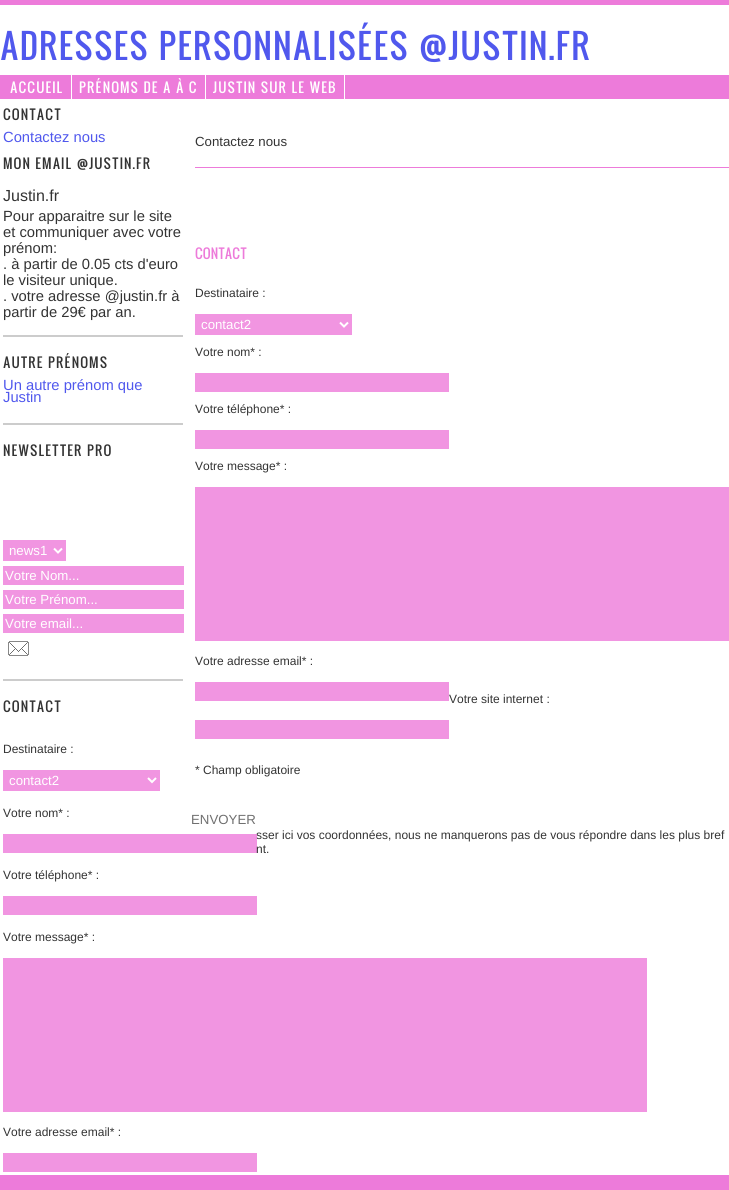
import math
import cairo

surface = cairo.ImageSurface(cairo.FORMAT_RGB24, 729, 1190)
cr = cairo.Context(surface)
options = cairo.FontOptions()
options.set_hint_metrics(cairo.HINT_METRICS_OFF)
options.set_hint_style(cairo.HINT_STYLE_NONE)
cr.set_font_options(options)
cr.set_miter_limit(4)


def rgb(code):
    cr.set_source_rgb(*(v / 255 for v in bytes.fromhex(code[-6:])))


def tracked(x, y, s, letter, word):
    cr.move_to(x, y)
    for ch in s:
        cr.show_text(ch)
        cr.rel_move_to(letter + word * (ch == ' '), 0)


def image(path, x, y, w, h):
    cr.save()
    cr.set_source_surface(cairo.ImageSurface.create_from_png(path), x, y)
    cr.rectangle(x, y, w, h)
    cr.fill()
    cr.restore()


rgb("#ffffff")
cr.paint()
for x, y, w, h, color in [
    (0, 0, 729, 5, "#ed7bda"),
    (0, 75, 729, 24, "#ed7bda"),
    (71, 75, 1, 24, "#ffffff"),
    (205, 75, 1, 24, "#ffffff"),
    (344, 75, 1, 24, "#ffffff"),
    (3, 335, 180, 2, "#cccccc"),
    (3, 423, 180, 2, "#cccccc"),
    (3, 679, 180, 2, "#cccccc"),
    (3, 540, 63, 21, "#f195e1"),
]:
    rgb(color)
    cr.rectangle(x, y, w, h)
    cr.fill()
cr.new_path()
cr.move_to(54, 548.5)
cr.line_to(58, 552.5)
cr.line_to(62, 548.5)
rgb("#ffffff")
cr.stroke()
for x, y, w, h, color in [
    (3, 566, 181, 19, "#f195e1"),
    (3, 590, 181, 19, "#f195e1"),
    (3, 614, 181, 19, "#f195e1"),
]:
    rgb(color)
    cr.rectangle(x, y, w, h)
    cr.fill()
image("img/1.png", 8, 641, 21, 15)
cr.rectangle(3, 770, 157, 21)
cr.fill()
cr.new_path()
cr.move_to(148, 778)
cr.line_to(152, 782)
cr.line_to(156, 778)
rgb("#ffffff")
cr.stroke()
for x, y, w, h, color in [
    (3, 896, 254, 19, "#f195e1"),
    (3, 958, 644, 154, "#f195e1"),
    (3, 1153, 254, 19, "#f195e1"),
    (195, 167, 534, 1, "#ed7bda"),
    (195, 314, 157, 21, "#f195e1"),
]:
    rgb(color)
    cr.rectangle(x, y, w, h)
    cr.fill()
cr.new_path()
cr.move_to(340, 322.5)
cr.line_to(344, 326.5)
cr.line_to(348, 322.5)
rgb("#ffffff")
cr.stroke()
for x, y, w, h, color in [
    (195, 373, 254, 19, "#f195e1"),
    (195, 430, 254, 19, "#f195e1"),
    (195, 487, 534, 154, "#f195e1"),
    (195, 682, 254, 19, "#f195e1"),
    (195, 720, 254, 19, "#f195e1"),
    (0, 1175, 729, 15, "#ed7bda"),
]:
    rgb(color)
    cr.rectangle(x, y, w, h)
    cr.fill()
cr.select_font_face("Oswald")
cr.set_font_size(33.3)
rgb("#5058ed")
tracked(0, 60, "ADRESSES PERSONNALISÉES @JUSTIN.FR", 1, 0)
cr.set_font_size(13.25)
rgb("#ffffff")
for x, y, s in [
    (10, 93, "ACCUEIL"),
    (79, 93, "PRÉNOMS DE A À C"),
    (213, 93, "JUSTIN SUR LE WEB"),
]:
    tracked(x, y, s, 1, 0)
rgb("#333333")
tracked(3, 120, "CONTACT", 1, 0)
cr.select_font_face("Liberation Sans")
cr.set_font_size(14.75)
rgb("#5058ed")
cr.move_to(3, 142)
cr.show_text("Contactez nous")
cr.select_font_face("Oswald")
cr.set_font_size(13.25)
rgb("#333333")
tracked(3, 169, "MON EMAIL @JUSTIN.FR", 1, 0)
cr.select_font_face("Liberation Sans")
cr.set_font_size(16)
cr.move_to(3, 201)
cr.show_text("Justin.fr")
cr.set_font_size(14.75)
for x, y, s in [
    (3, 221, "Pour apparaitre sur le site"),
    (3, 237, "et communiquer avec votre"),
    (3, 253, "prénom:"),
    (3, 269, ". à partir de 0.05 cts d'euro"),
    (3, 285, "le visiteur unique."),
    (3, 301, ". votre adresse @justin.fr à"),
    (3, 317, "partir de 29€ par an."),
]:
    cr.move_to(x, y)
    cr.show_text(s)
cr.select_font_face("Oswald")
cr.set_font_size(13.25)
tracked(3, 368, "AUTRE PRÉNOMS", 1, 0)
cr.select_font_face("Liberation Sans")
cr.set_font_size(14.75)
rgb("#5058ed")
cr.move_to(3, 390)
cr.show_text("Un autre prénom que")
cr.move_to(3, 402)
cr.show_text("Justin")
cr.select_font_face("Oswald")
cr.set_font_size(13.25)
rgb("#333333")
tracked(3, 456, "NEWSLETTER PRO", 1, 0)
cr.select_font_face("Liberation Sans")
rgb("#ffffff")
for x, y, s in [
    (9, 555, "news1"),
    (5, 580, "Votre Nom..."),
    (5, 604, "Votre Prénom..."),
    (5, 628, "Votre email..."),
]:
    cr.move_to(x, y)
    cr.show_text(s)
cr.select_font_face("Oswald")
rgb("#333333")
tracked(3, 712, "CONTACT", 1, 0)
cr.select_font_face("Liberation Sans")
cr.set_font_size(12)
cr.move_to(3, 753)
cr.show_text("Destinataire :")
cr.set_font_size(13.25)
rgb("#ffffff")
cr.move_to(9, 785)
cr.show_text("contact2")
cr.set_font_size(12)
rgb("#333333")
for x, y, s in [
    (3, 817, "Votre nom* :"),
    (3, 879, "Votre téléphone* :"),
    (3, 941, "Votre message* :"),
    (3, 1136, "Votre adresse email* :"),
]:
    cr.move_to(x, y)
    cr.show_text(s)
cr.set_font_size(13.25)
cr.move_to(195, 146)
cr.show_text("Contactez nous")
cr.select_font_face("Oswald")
rgb("#ed7bda")
cr.move_to(195, 259)
cr.show_text("CONTACT")
cr.select_font_face("Liberation Sans")
cr.set_font_size(12)
rgb("#333333")
cr.move_to(195, 297)
cr.show_text("Destinataire :")
cr.set_font_size(13.25)
rgb("#ffffff")
cr.move_to(201, 329)
cr.show_text("contact2")
cr.set_font_size(12)
rgb("#333333")
for x, y, s in [
    (195, 356, "Votre nom* :"),
    (195, 413, "Votre téléphone* :"),
    (195, 470, "Votre message* :"),
    (195, 665, "Votre adresse email* :"),
    (449, 703, "Votre site internet :"),
    (195, 774, "* Champ obligatoire"),
]:
    cr.move_to(x, y)
    cr.show_text(s)
cr.set_font_size(13.25)
rgb("#707070")
cr.move_to(191, 824)
cr.show_text("ENVOYER")
cr.set_font_size(12)
rgb("#333333")
cr.move_to(256, 839)
cr.show_text("sser ici vos coordonnées, nous ne manquerons pas de vous répondre dans les plus bref")
cr.set_source_rgba(0.929, 0.482, 0.855, 0.8)
cr.rectangle(3, 834, 254, 19)
cr.fill()
rgb("#333333")
cr.move_to(256, 853)
cr.show_text("nt.")
surface.write_to_png("page.png")
